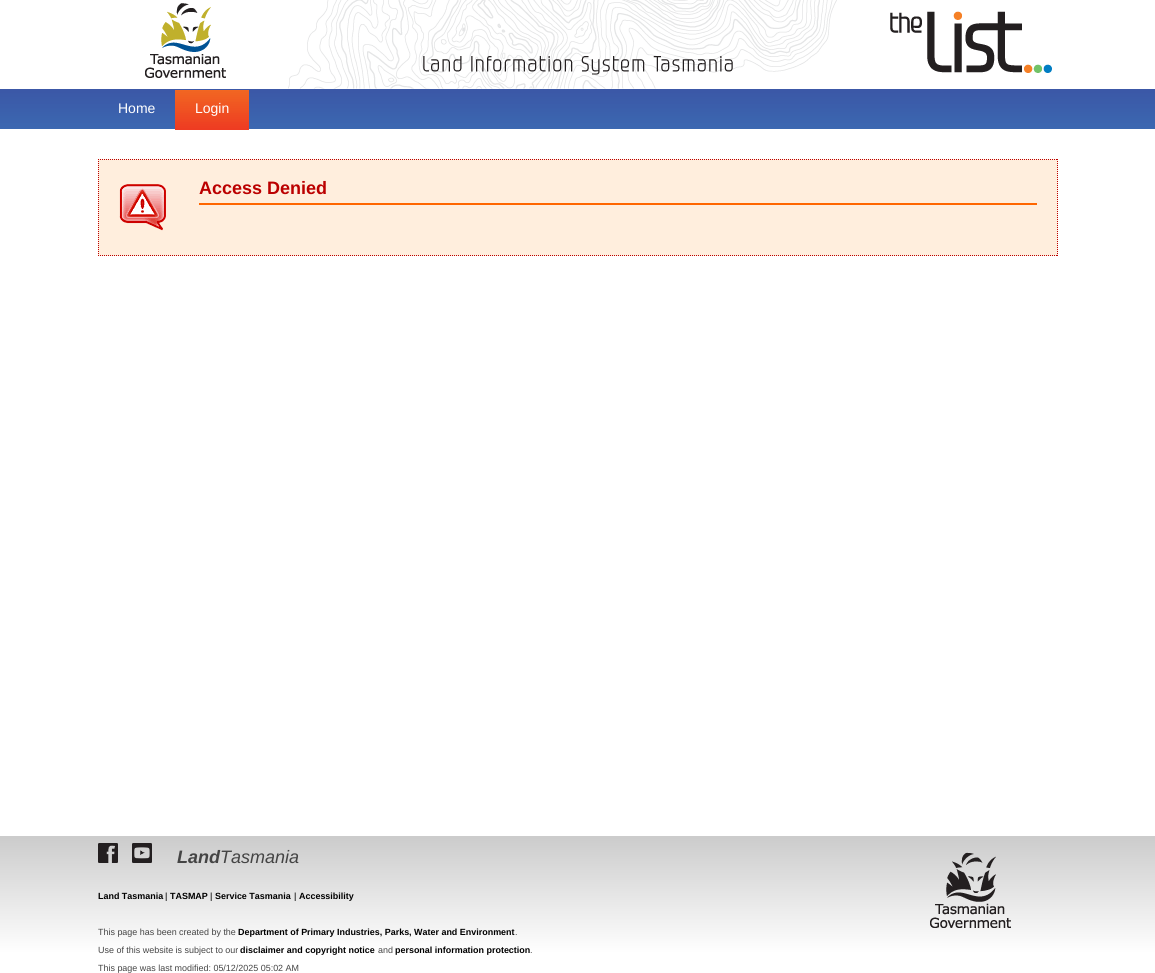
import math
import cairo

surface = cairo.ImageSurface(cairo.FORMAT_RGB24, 1155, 973)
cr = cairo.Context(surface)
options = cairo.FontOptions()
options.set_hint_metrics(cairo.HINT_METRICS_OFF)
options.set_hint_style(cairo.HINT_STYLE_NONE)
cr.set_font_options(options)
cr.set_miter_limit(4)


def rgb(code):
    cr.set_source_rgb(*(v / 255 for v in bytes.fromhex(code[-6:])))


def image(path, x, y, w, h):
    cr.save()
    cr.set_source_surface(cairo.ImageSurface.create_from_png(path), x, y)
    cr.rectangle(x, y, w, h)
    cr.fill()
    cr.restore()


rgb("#ffffff")
cr.paint()
image("img/1.png", 0, 0, 1155, 129)
image("img/2.png", 145, 3, 81, 75)
image("img/3.png", 288, 0, 549, 89)
image("img/4.png", 890, 11, 162, 62)
image("img/5.png", 175, 90, 74, 40)
rgb("#ffeedd")
cr.rectangle(98, 159, 960, 97)
cr.fill()
image("img/6.png", 119, 184, 47, 47)
cr.new_path()
cr.move_to(98, 159.5)
cr.line_to(1058, 159.5)
rgb("#bb0000")
cr.set_line_width(1)
cr.set_dash([1, 1])
cr.stroke()
cr.new_path()
cr.move_to(1057.5, 159)
cr.line_to(1057.5, 256)
cr.stroke()
cr.new_path()
cr.move_to(98, 255.5)
cr.line_to(1058, 255.5)
cr.stroke()
cr.new_path()
cr.move_to(98.5, 159)
cr.line_to(98.5, 256)
cr.stroke()
rgb("#ff6600")
cr.rectangle(199, 203, 838, 2)
cr.fill()
image("img/7.png", 0, 836, 1155, 130)
image("img/8.png", 98, 843, 20, 20)
image("img/9.png", 132, 843, 20, 20)
image("img/10.png", 930, 852, 81, 76)
cr.select_font_face("Liberation Sans")
cr.set_font_size(14)
rgb("#ffffff")
cr.move_to(118, 113)
cr.show_text("Home")
cr.move_to(195, 113)
cr.show_text("Login")
cr.select_font_face("Liberation Sans", cairo.FONT_SLANT_NORMAL, cairo.FONT_WEIGHT_BOLD)
cr.set_font_size(18)
rgb("#bb0000")
cr.move_to(199, 194)
cr.show_text("Access Denied")
cr.select_font_face("Liberation Sans", cairo.FONT_SLANT_ITALIC, cairo.FONT_WEIGHT_BOLD)
rgb("#444444")
cr.move_to(177, 863)
cr.show_text("Land")
cr.select_font_face("Liberation Sans", cairo.FONT_SLANT_ITALIC)
cr.move_to(220, 863)
cr.show_text("Tasmania")
cr.select_font_face("Liberation Sans", cairo.FONT_SLANT_NORMAL, cairo.FONT_WEIGHT_BOLD)
cr.set_font_size(8.95)
rgb("#000000")
cr.move_to(98, 899)
cr.show_text("Land Tasmania")
rgb("#444444")
cr.move_to(165, 899)
cr.show_text("|")
rgb("#000000")
cr.move_to(170, 899)
cr.show_text("TASMAP")
rgb("#444444")
cr.move_to(210, 899)
cr.show_text("|")
rgb("#000000")
cr.move_to(215, 899)
cr.show_text("Service Tasmania")
rgb("#444444")
cr.move_to(294, 899)
cr.show_text("|")
rgb("#000000")
cr.move_to(299, 899)
cr.show_text("Accessibility")
cr.select_font_face("Liberation Sans")
rgb("#444444")
cr.move_to(98, 935)
cr.show_text("This page has been created by the")
cr.select_font_face("Liberation Sans", cairo.FONT_SLANT_NORMAL, cairo.FONT_WEIGHT_BOLD)
rgb("#000000")
cr.move_to(238, 935)
cr.show_text("Department of Primary Industries, Parks, Water and Environment")
cr.select_font_face("Liberation Sans")
rgb("#444444")
cr.move_to(515, 935)
cr.show_text(".")
cr.move_to(98, 953)
cr.show_text("Use of this website is subject to our")
cr.select_font_face("Liberation Sans", cairo.FONT_SLANT_NORMAL, cairo.FONT_WEIGHT_BOLD)
rgb("#000000")
cr.move_to(240, 953)
cr.show_text("disclaimer and copyright notice")
cr.select_font_face("Liberation Sans")
rgb("#444444")
cr.move_to(378, 953)
cr.show_text("and")
cr.select_font_face("Liberation Sans", cairo.FONT_SLANT_NORMAL, cairo.FONT_WEIGHT_BOLD)
rgb("#000000")
cr.move_to(395, 953)
cr.show_text("personal information protection")
cr.select_font_face("Liberation Sans")
rgb("#444444")
cr.move_to(530, 953)
cr.show_text(".")
cr.move_to(98, 971)
cr.show_text("This page was last modified: 05/12/2025 05:02 AM")
surface.write_to_png("page.png")
